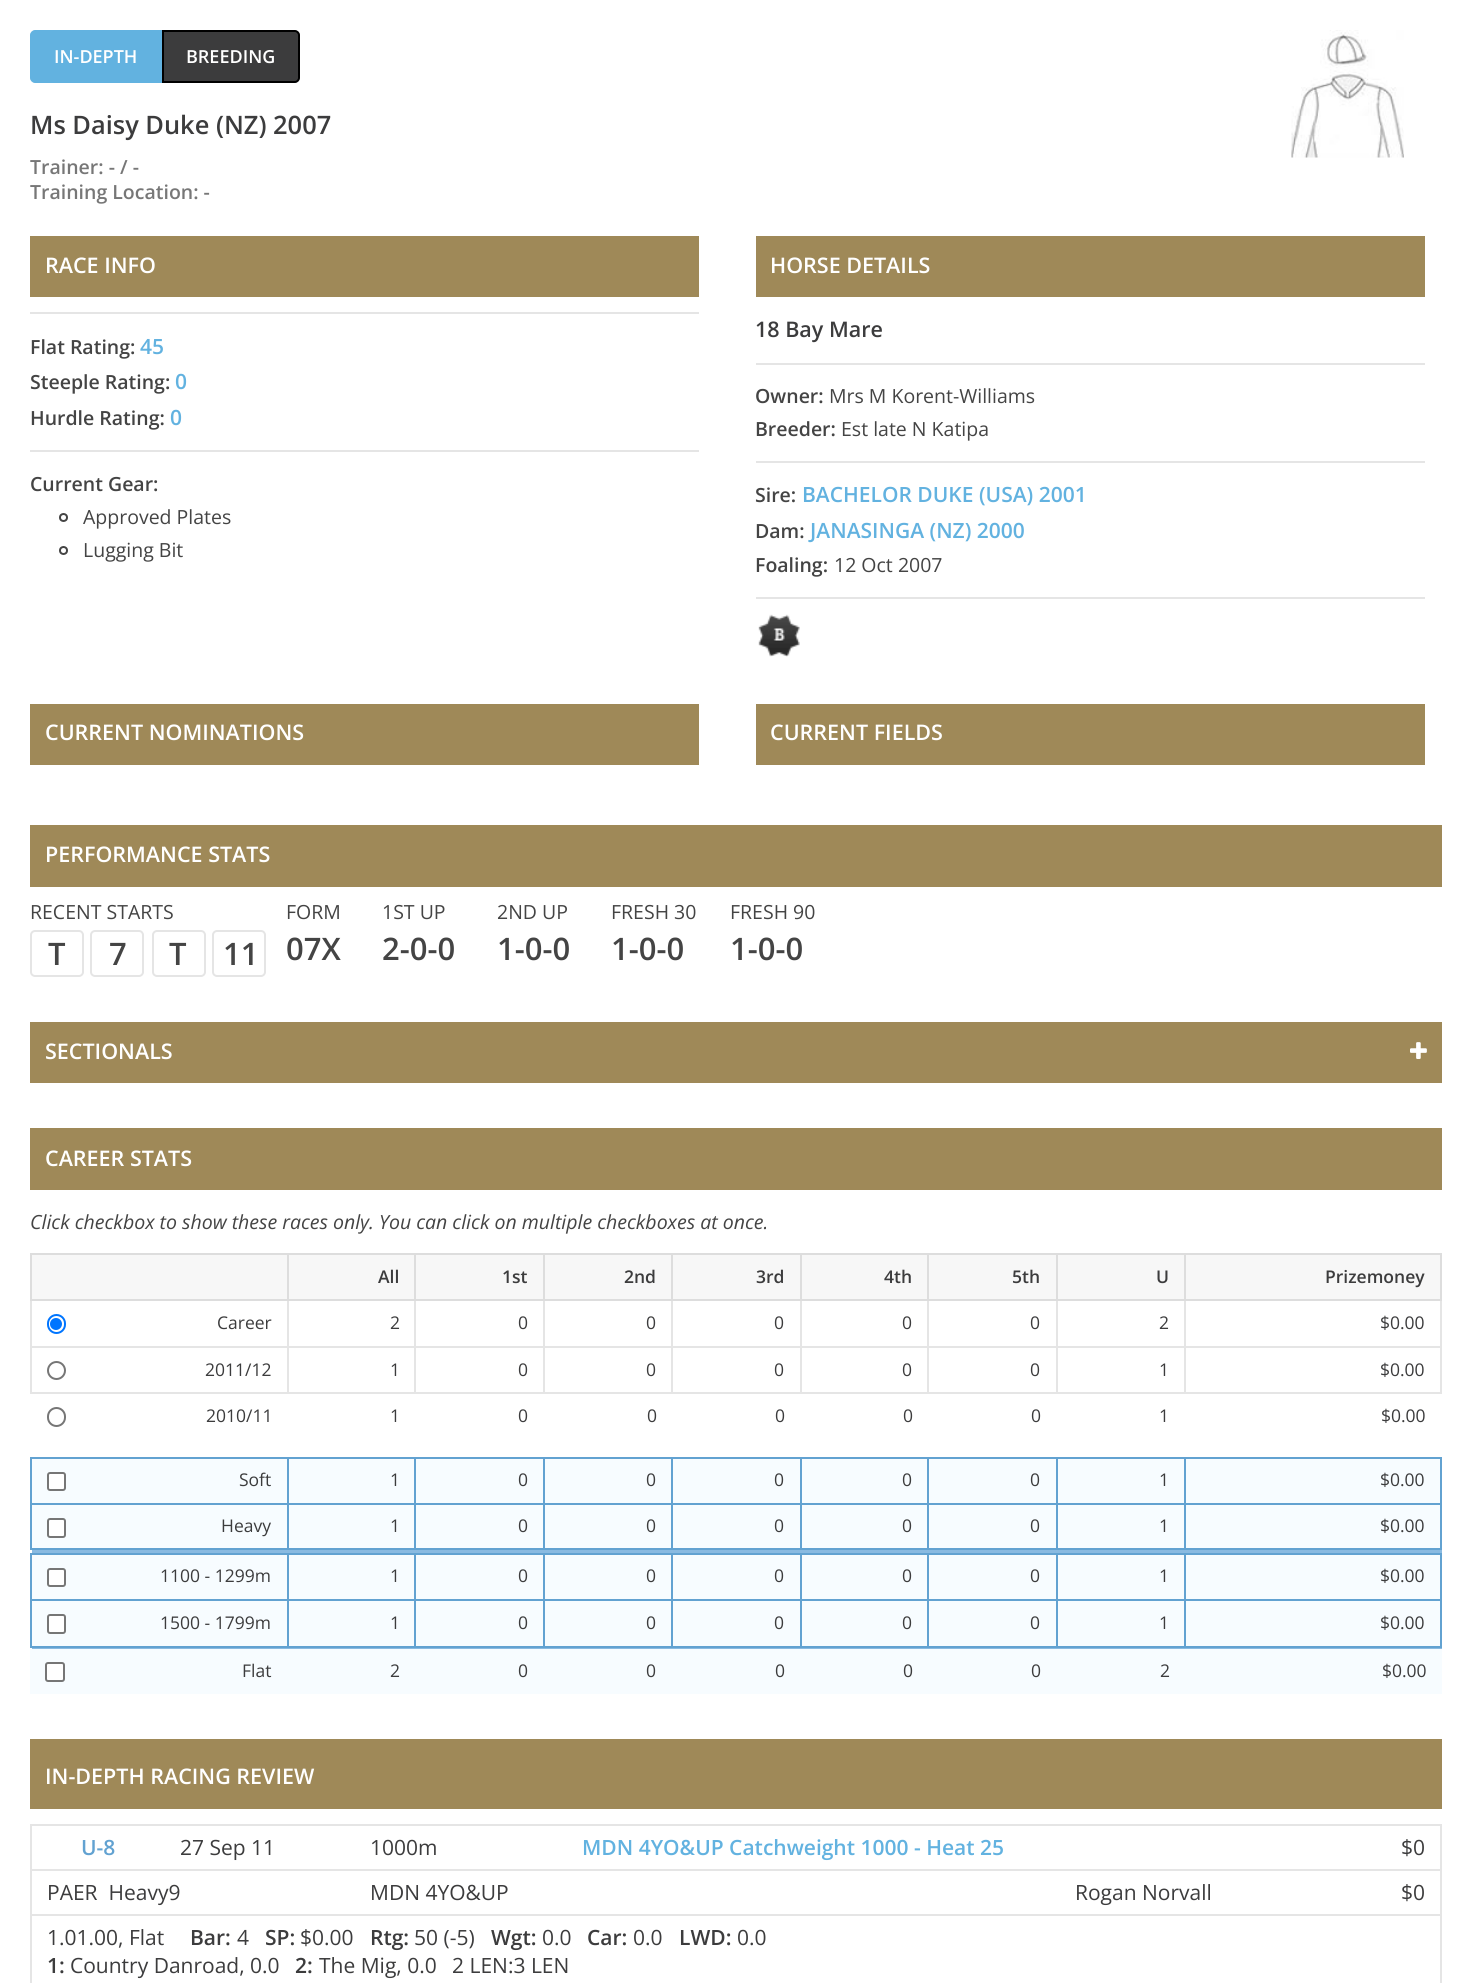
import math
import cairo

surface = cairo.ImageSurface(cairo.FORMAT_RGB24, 1471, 1983)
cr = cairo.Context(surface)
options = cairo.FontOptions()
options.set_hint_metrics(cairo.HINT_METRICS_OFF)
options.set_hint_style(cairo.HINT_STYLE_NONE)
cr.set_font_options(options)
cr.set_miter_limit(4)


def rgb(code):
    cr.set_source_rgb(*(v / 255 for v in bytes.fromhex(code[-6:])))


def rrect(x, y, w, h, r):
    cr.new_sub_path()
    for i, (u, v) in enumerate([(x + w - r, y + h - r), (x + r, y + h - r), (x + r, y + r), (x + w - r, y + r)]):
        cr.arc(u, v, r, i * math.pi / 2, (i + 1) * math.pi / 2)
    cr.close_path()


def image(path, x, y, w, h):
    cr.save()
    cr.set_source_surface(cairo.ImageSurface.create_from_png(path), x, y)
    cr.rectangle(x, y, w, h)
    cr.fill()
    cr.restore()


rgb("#ffffff")
cr.paint()
rgb("#62b2e0")
cr.new_path()
cr.move_to(35, 31)
cr.line_to(161, 31)
cr.line_to(161, 82)
cr.line_to(35, 82)
cr.curve_to(33, 82, 31, 80, 31, 78)
cr.line_to(31, 35)
cr.curve_to(31, 33, 33, 31, 35, 31)
cr.close_path()
cr.fill_preserve()
cr.stroke()
rgb("#3c3c3d")
cr.new_path()
cr.move_to(163, 31)
cr.line_to(295, 31)
cr.curve_to(297, 31, 299, 33, 299, 35)
cr.line_to(299, 78)
cr.curve_to(299, 80, 297, 82, 295, 82)
cr.line_to(163, 82)
cr.close_path()
cr.fill_preserve()
rgb("#000000")
cr.stroke()
image("img/1.png", 1291, 30, 113, 128)
for x, y, w, h, color in [
    (30, 236, 669, 61, "#9f8958"),
    (30, 312, 669, 2, "#e5e5e5"),
    (30, 450, 669, 2, "#e5e5e5"),
]:
    rgb(color)
    cr.rectangle(x, y, w, h)
    cr.fill()
cr.arc(63.5, 517.5, 3.5, 0, 2 * math.pi)
rgb("#444444")
cr.stroke()
cr.arc(63.5, 550.5, 3.5, 0, 2 * math.pi)
cr.stroke()
for x, y, w, h, color in [
    (756, 236, 669, 61, "#9f8958"),
    (756, 363, 669, 2, "#e5e5e5"),
    (756, 461, 669, 2, "#e5e5e5"),
    (756, 597, 669, 2, "#e5e5e5"),
]:
    rgb(color)
    cr.rectangle(x, y, w, h)
    cr.fill()
image("img/2.png", 758, 614, 42, 43)
for x, y, w, h, color in [
    (30, 704, 669, 61, "#9f8958"),
    (756, 704, 669, 61, "#9f8958"),
    (30, 825, 1412, 62, "#9f8958"),
]:
    rgb(color)
    cr.rectangle(x, y, w, h)
    cr.fill()
rrect(31, 931, 52, 45, 4)
rgb("#e5e5e5")
cr.stroke()
rrect(91, 931, 52, 45, 4)
cr.stroke()
rrect(153, 931, 52, 45, 4)
cr.stroke()
rrect(213, 931, 52, 45, 4)
cr.stroke()
rgb("#9f8958")
cr.rectangle(30, 1022, 1412, 61)
cr.fill()
image("img/3.png", 1410, 1042, 17, 17)
for x, y, w, h, color in [
    (30, 1128, 1412, 62, "#9f8958"),
    (32, 1255, 255, 44, "#f7f7f7"),
    (1184, 1253, 258, 2, "#dddddd"),
    (1184, 1346, 258, 2, "#e5e5e5"),
    (1440, 1299, 2, 95, "#e5e5e5"),
    (1440, 1253, 2, 48, "#dddddd"),
    (1184, 1392, 258, 2, "#e5e5e5"),
    (1184, 1346, 2, 48, "#e5e5e5"),
    (1056, 1346, 129, 2, "#e5e5e5"),
    (1184, 1299, 2, 48, "#e5e5e5"),
    (1184, 1299, 258, 2, "#dddddd"),
    (1184, 1253, 2, 48, "#dddddd"),
    (1056, 1253, 129, 2, "#dddddd"),
    (1056, 1392, 129, 2, "#e5e5e5"),
    (1056, 1346, 2, 48, "#e5e5e5"),
    (927, 1346, 131, 2, "#e5e5e5"),
    (1056, 1299, 2, 48, "#e5e5e5"),
    (1056, 1299, 129, 2, "#dddddd"),
    (1056, 1253, 2, 48, "#dddddd"),
    (927, 1253, 131, 2, "#dddddd"),
    (927, 1392, 131, 2, "#e5e5e5"),
    (927, 1346, 2, 48, "#e5e5e5"),
    (800, 1346, 129, 2, "#e5e5e5"),
    (927, 1299, 2, 48, "#e5e5e5"),
    (927, 1299, 131, 2, "#dddddd"),
    (927, 1253, 2, 48, "#dddddd"),
    (800, 1253, 129, 2, "#dddddd"),
    (800, 1392, 129, 2, "#e5e5e5"),
    (800, 1346, 2, 48, "#e5e5e5"),
    (671, 1346, 130, 2, "#e5e5e5"),
    (800, 1299, 2, 48, "#e5e5e5"),
    (800, 1299, 129, 2, "#dddddd"),
    (800, 1253, 2, 48, "#dddddd"),
    (671, 1253, 130, 2, "#dddddd"),
    (671, 1392, 130, 2, "#e5e5e5"),
    (671, 1346, 2, 48, "#e5e5e5"),
    (543, 1346, 129, 2, "#e5e5e5"),
    (671, 1299, 2, 48, "#e5e5e5"),
    (671, 1299, 130, 2, "#dddddd"),
    (671, 1253, 2, 48, "#dddddd"),
    (543, 1253, 129, 2, "#dddddd"),
    (543, 1392, 129, 2, "#e5e5e5"),
    (543, 1346, 2, 48, "#e5e5e5"),
    (414, 1346, 131, 2, "#e5e5e5"),
    (543, 1299, 2, 48, "#e5e5e5"),
    (543, 1299, 129, 2, "#dddddd"),
    (543, 1253, 2, 48, "#dddddd"),
    (414, 1253, 131, 2, "#dddddd"),
    (414, 1392, 131, 2, "#e5e5e5"),
    (414, 1346, 2, 48, "#e5e5e5"),
    (287, 1346, 129, 2, "#e5e5e5"),
    (414, 1299, 2, 48, "#e5e5e5"),
    (414, 1299, 131, 2, "#dddddd"),
    (414, 1253, 2, 48, "#dddddd"),
    (287, 1253, 129, 2, "#dddddd"),
    (287, 1392, 129, 2, "#e5e5e5"),
    (287, 1346, 2, 48, "#e5e5e5"),
    (30, 1346, 258, 2, "#e5e5e5"),
    (287, 1299, 2, 48, "#e5e5e5"),
    (287, 1299, 129, 2, "#dddddd"),
    (287, 1253, 2, 48, "#dddddd"),
    (30, 1253, 258, 2, "#dddddd"),
    (30, 1392, 258, 2, "#e5e5e5"),
    (30, 1299, 2, 95, "#e5e5e5"),
    (30, 1299, 258, 2, "#dddddd"),
    (30, 1253, 2, 48, "#dddddd"),
    (289, 1255, 125, 44, "#f7f7f7"),
    (416, 1255, 127, 44, "#f7f7f7"),
    (545, 1255, 126, 44, "#f7f7f7"),
    (673, 1255, 127, 44, "#f7f7f7"),
    (802, 1255, 125, 44, "#f7f7f7"),
    (929, 1255, 127, 44, "#f7f7f7"),
    (1058, 1255, 126, 44, "#f7f7f7"),
    (1186, 1255, 254, 44, "#f7f7f7"),
]:
    rgb(color)
    cr.rectangle(x, y, w, h)
    cr.fill()
rrect(48, 1315, 17, 18, 8.5)
rgb("#0075ff")
cr.stroke()
cr.arc(56, 1324, 6, 0, 2 * math.pi)
cr.fill()
cr.arc(56.5, 1370.5, 8.5, 0, 2 * math.pi)
rgb("#767676")
cr.stroke()
rrect(48, 1408, 17, 18, 8.5)
cr.stroke()
for x, y, w, h, color in [
    (32, 1459, 255, 44, "#f7fcff"),
    (1184, 1457, 258, 2, "#62a2d1"),
    (1184, 1503, 258, 2, "#62a2d1"),
    (1440, 1503, 2, 47, "#62a2d1"),
    (1184, 1548, 258, 2, "#62a2d1"),
    (1184, 1503, 2, 47, "#62a2d1"),
    (1056, 1503, 129, 2, "#62a2d1"),
    (1184, 1457, 2, 48, "#62a2d1"),
    (1056, 1457, 129, 2, "#62a2d1"),
    (1056, 1548, 129, 2, "#62a2d1"),
    (1056, 1503, 2, 47, "#62a2d1"),
    (927, 1503, 131, 2, "#62a2d1"),
    (1056, 1457, 2, 48, "#62a2d1"),
    (927, 1457, 131, 2, "#62a2d1"),
    (927, 1548, 131, 2, "#62a2d1"),
    (927, 1503, 2, 47, "#62a2d1"),
    (800, 1503, 129, 2, "#62a2d1"),
    (927, 1457, 2, 48, "#62a2d1"),
    (800, 1457, 129, 2, "#62a2d1"),
    (800, 1548, 129, 2, "#62a2d1"),
    (800, 1503, 2, 47, "#62a2d1"),
    (671, 1503, 130, 2, "#62a2d1"),
    (800, 1457, 2, 48, "#62a2d1"),
    (671, 1457, 130, 2, "#62a2d1"),
    (671, 1548, 130, 2, "#62a2d1"),
    (671, 1503, 2, 47, "#62a2d1"),
    (543, 1503, 129, 2, "#62a2d1"),
    (671, 1457, 2, 48, "#62a2d1"),
    (543, 1457, 129, 2, "#62a2d1"),
    (543, 1548, 129, 2, "#62a2d1"),
    (543, 1503, 2, 47, "#62a2d1"),
    (414, 1503, 131, 2, "#62a2d1"),
    (543, 1457, 2, 48, "#62a2d1"),
    (414, 1457, 131, 2, "#62a2d1"),
    (414, 1548, 131, 2, "#62a2d1"),
    (414, 1503, 2, 47, "#62a2d1"),
    (287, 1503, 129, 2, "#62a2d1"),
    (414, 1457, 2, 48, "#62a2d1"),
    (287, 1457, 129, 2, "#62a2d1"),
    (287, 1548, 129, 2, "#62a2d1"),
    (287, 1503, 2, 47, "#62a2d1"),
    (30, 1503, 258, 2, "#62a2d1"),
    (287, 1457, 2, 48, "#62a2d1"),
    (30, 1457, 258, 2, "#62a2d1"),
    (30, 1548, 258, 2, "#62a2d1"),
    (30, 1503, 2, 47, "#62a2d1"),
    (30, 1457, 2, 48, "#62a2d1"),
]:
    rgb(color)
    cr.rectangle(x, y, w, h)
    cr.fill()
rgb("#ffffff")
rrect(48, 1473, 17, 17, 2)
cr.fill_preserve()
rgb("#767676")
cr.stroke()
for x, y, w, h, color in [
    (289, 1459, 125, 44, "#f7fcff"),
    (416, 1459, 127, 44, "#f7fcff"),
    (545, 1459, 126, 44, "#f7fcff"),
    (673, 1459, 127, 44, "#f7fcff"),
    (802, 1459, 125, 44, "#f7fcff"),
    (929, 1459, 127, 44, "#f7fcff"),
    (1058, 1459, 126, 44, "#f7fcff"),
    (1186, 1459, 254, 44, "#f7fcff"),
    (1440, 1457, 2, 48, "#62a2d1"),
    (32, 1505, 255, 43, "#f7fcff"),
]:
    rgb(color)
    cr.rectangle(x, y, w, h)
    cr.fill()
rgb("#ffffff")
rrect(48, 1519, 17, 18, 2)
cr.fill_preserve()
rgb("#767676")
cr.stroke()
for x, y, w, h, color in [
    (289, 1505, 125, 43, "#f7fcff"),
    (416, 1505, 127, 43, "#f7fcff"),
    (545, 1505, 126, 43, "#f7fcff"),
    (673, 1505, 127, 43, "#f7fcff"),
    (802, 1505, 125, 43, "#f7fcff"),
    (929, 1505, 127, 43, "#f7fcff"),
    (1058, 1505, 126, 43, "#f7fcff"),
    (1186, 1505, 254, 43, "#f7fcff"),
    (32, 1550, 1410, 3, "#89bae1"),
    (32, 1555, 255, 44, "#f7fcff"),
    (1184, 1553, 258, 2, "#62a2d1"),
    (1184, 1599, 258, 2, "#62a2d1"),
    (1440, 1599, 2, 48, "#62a2d1"),
    (1184, 1646, 258, 2, "#62a2d1"),
    (1184, 1599, 2, 48, "#62a2d1"),
    (1056, 1599, 129, 2, "#62a2d1"),
    (1184, 1553, 2, 48, "#62a2d1"),
    (1056, 1553, 129, 2, "#62a2d1"),
    (1056, 1646, 129, 2, "#62a2d1"),
    (1056, 1599, 2, 48, "#62a2d1"),
    (927, 1599, 131, 2, "#62a2d1"),
    (1056, 1553, 2, 48, "#62a2d1"),
    (927, 1553, 131, 2, "#62a2d1"),
    (927, 1646, 131, 2, "#62a2d1"),
    (927, 1599, 2, 48, "#62a2d1"),
    (800, 1599, 129, 2, "#62a2d1"),
    (927, 1553, 2, 48, "#62a2d1"),
    (800, 1553, 129, 2, "#62a2d1"),
    (800, 1646, 129, 2, "#62a2d1"),
    (800, 1599, 2, 48, "#62a2d1"),
    (671, 1599, 130, 2, "#62a2d1"),
    (800, 1553, 2, 48, "#62a2d1"),
    (671, 1553, 130, 2, "#62a2d1"),
    (671, 1646, 130, 2, "#62a2d1"),
    (671, 1599, 2, 48, "#62a2d1"),
    (543, 1599, 129, 2, "#62a2d1"),
    (671, 1553, 2, 48, "#62a2d1"),
    (543, 1553, 129, 2, "#62a2d1"),
    (543, 1646, 129, 2, "#62a2d1"),
    (543, 1599, 2, 48, "#62a2d1"),
    (414, 1599, 131, 2, "#62a2d1"),
    (543, 1553, 2, 48, "#62a2d1"),
    (414, 1553, 131, 2, "#62a2d1"),
    (414, 1646, 131, 2, "#62a2d1"),
    (414, 1599, 2, 48, "#62a2d1"),
    (287, 1599, 129, 2, "#62a2d1"),
    (414, 1553, 2, 48, "#62a2d1"),
    (287, 1553, 129, 2, "#62a2d1"),
    (287, 1646, 129, 2, "#62a2d1"),
    (287, 1599, 2, 48, "#62a2d1"),
    (30, 1599, 258, 2, "#62a2d1"),
    (287, 1553, 2, 48, "#62a2d1"),
    (30, 1553, 258, 2, "#62a2d1"),
    (30, 1646, 258, 2, "#62a2d1"),
    (30, 1599, 2, 48, "#62a2d1"),
    (30, 1553, 2, 48, "#62a2d1"),
]:
    rgb(color)
    cr.rectangle(x, y, w, h)
    cr.fill()
rgb("#ffffff")
rrect(48, 1569, 17, 17, 2)
cr.fill_preserve()
rgb("#767676")
cr.stroke()
for x, y, w, h, color in [
    (289, 1555, 125, 44, "#f7fcff"),
    (416, 1555, 127, 44, "#f7fcff"),
    (545, 1555, 126, 44, "#f7fcff"),
    (673, 1555, 127, 44, "#f7fcff"),
    (802, 1555, 125, 44, "#f7fcff"),
    (929, 1555, 127, 44, "#f7fcff"),
    (1058, 1555, 126, 44, "#f7fcff"),
    (1186, 1555, 254, 44, "#f7fcff"),
    (1440, 1553, 2, 48, "#62a2d1"),
    (32, 1601, 255, 45, "#f7fcff"),
]:
    rgb(color)
    cr.rectangle(x, y, w, h)
    cr.fill()
rgb("#ffffff")
rrect(48, 1615, 17, 18, 2)
cr.fill_preserve()
rgb("#767676")
cr.stroke()
for x, y, w, h, color in [
    (289, 1601, 125, 45, "#f7fcff"),
    (416, 1601, 127, 45, "#f7fcff"),
    (545, 1601, 126, 45, "#f7fcff"),
    (673, 1601, 127, 45, "#f7fcff"),
    (802, 1601, 125, 45, "#f7fcff"),
    (929, 1601, 127, 45, "#f7fcff"),
    (1058, 1601, 126, 45, "#f7fcff"),
    (1186, 1601, 254, 45, "#f7fcff"),
    (32, 1648, 1410, 1, "#89bae1"),
    (30, 1649, 1412, 45, "#f7fcff"),
]:
    rgb(color)
    cr.rectangle(x, y, w, h)
    cr.fill()
rgb("#ffffff")
rrect(46, 1663, 18, 18, 2)
cr.fill_preserve()
rgb("#767676")
cr.stroke()
for x, y, w, h, color in [
    (30, 1739, 1412, 70, "#9f8958"),
    (30, 1824, 1412, 2, "#e5e5e5"),
    (1440, 1824, 2, 159, "#e5e5e5"),
    (30, 1824, 2, 159, "#e5e5e5"),
    (30, 1869, 1412, 2, "#e5e5e5"),
    (30, 1914, 1412, 2, "#e5e5e5"),
]:
    rgb(color)
    cr.rectangle(x, y, w, h)
    cr.fill()
cr.select_font_face("Open Sans SemiBold")
cr.set_font_size(18)
rgb("#ffffff")
cr.move_to(54, 63)
cr.show_text("IN-DEPTH")
cr.move_to(186, 63)
cr.show_text("BREEDING")
cr.set_font_size(25.4)
rgb("#3c3c3d")
cr.move_to(30, 134)
cr.show_text("Ms Daisy Duke (NZ) 2007")
cr.set_font_size(19.5)
rgb("#777777")
cr.move_to(30, 174)
cr.show_text("Trainer: - / -")
cr.move_to(30, 199)
cr.show_text("Training Location: -")
cr.set_font_size(21.5)
rgb("#ffffff")
cr.move_to(45, 273)
cr.show_text("RACE INFO")
cr.set_font_size(19.5)
rgb("#444444")
cr.move_to(30, 354)
cr.show_text("Flat Rating:")
cr.set_font_size(21)
rgb("#62b2e0")
cr.move_to(140, 354)
cr.show_text("45")
cr.set_font_size(19.5)
rgb("#444444")
cr.move_to(30, 389)
cr.show_text("Steeple Rating:")
cr.set_font_size(21)
rgb("#62b2e0")
cr.move_to(175, 389)
cr.show_text("0")
cr.set_font_size(19.5)
rgb("#444444")
cr.move_to(30, 425)
cr.show_text("Hurdle Rating:")
cr.set_font_size(21)
rgb("#62b2e0")
cr.move_to(170, 425)
cr.show_text("0")
cr.set_font_size(19.5)
rgb("#444444")
cr.move_to(30, 491)
cr.show_text("Current Gear:")
cr.select_font_face("Open Sans")
cr.move_to(83, 524)
cr.show_text("Approved Plates")
cr.move_to(83, 557)
cr.show_text("Lugging Bit")
cr.select_font_face("Open Sans SemiBold")
cr.set_font_size(21.5)
rgb("#ffffff")
cr.move_to(770, 273)
cr.show_text("HORSE DETAILS")
rgb("#3c3c3d")
cr.move_to(755, 337)
cr.show_text("18 Bay Mare")
cr.set_font_size(19.5)
rgb("#444444")
cr.move_to(755, 403)
cr.show_text("Owner:")
cr.select_font_face("Open Sans")
cr.move_to(829, 403)
cr.show_text("Mrs M Korent-Williams")
cr.select_font_face("Open Sans SemiBold")
cr.move_to(755, 436)
cr.show_text("Breeder:")
cr.select_font_face("Open Sans")
cr.move_to(841, 436)
cr.show_text("Est late N Katipa")
cr.select_font_face("Open Sans SemiBold")
cr.move_to(755, 502)
cr.show_text("Sire:")
cr.set_font_size(21)
rgb("#62b2e0")
cr.move_to(802, 502)
cr.show_text("BACHELOR DUKE (USA) 2001")
cr.set_font_size(19.5)
rgb("#444444")
cr.move_to(755, 538)
cr.show_text("Dam:")
cr.set_font_size(21)
rgb("#62b2e0")
cr.move_to(810, 538)
cr.show_text("JANASINGA (NZ) 2000")
cr.set_font_size(19.5)
rgb("#444444")
cr.move_to(755, 572)
cr.show_text("Foaling:")
cr.select_font_face("Open Sans")
cr.move_to(834, 572)
cr.show_text("12 Oct 2007")
cr.select_font_face("Open Sans SemiBold")
cr.set_font_size(21.5)
rgb("#ffffff")
for x, y, s in [
    (45, 740, "CURRENT NOMINATIONS"),
    (770, 740, "CURRENT FIELDS"),
    (45, 862, "PERFORMANCE STATS"),
]:
    cr.move_to(x, y)
    cr.show_text(s)
cr.select_font_face("Open Sans")
cr.set_font_size(19.5)
rgb("#444444")
cr.move_to(30, 919)
cr.show_text("RECENT STARTS")
cr.select_font_face("Open Sans SemiBold")
cr.set_font_size(31)
for x, y, s in [
    (48, 965, "T"),
    (109, 965, "7"),
    (169, 965, "T"),
    (223, 965, "11"),
]:
    cr.move_to(x, y)
    cr.show_text(s)
cr.select_font_face("Open Sans")
cr.set_font_size(19.5)
cr.move_to(286, 919)
cr.show_text("FORM")
cr.select_font_face("Open Sans SemiBold")
cr.set_font_size(31)
cr.move_to(286, 960)
cr.show_text("07X")
cr.select_font_face("Open Sans")
cr.set_font_size(19.5)
cr.move_to(382, 919)
cr.show_text("1ST UP")
cr.select_font_face("Open Sans SemiBold")
cr.set_font_size(31)
cr.move_to(382, 960)
cr.show_text("2-0-0")
cr.select_font_face("Open Sans")
cr.set_font_size(19.5)
cr.move_to(497, 919)
cr.show_text("2ND UP")
cr.select_font_face("Open Sans SemiBold")
cr.set_font_size(31)
cr.move_to(497, 960)
cr.show_text("1-0-0")
cr.select_font_face("Open Sans")
cr.set_font_size(19.5)
cr.move_to(611, 919)
cr.show_text("FRESH 30")
cr.select_font_face("Open Sans SemiBold")
cr.set_font_size(31)
cr.move_to(611, 960)
cr.show_text("1-0-0")
cr.select_font_face("Open Sans")
cr.set_font_size(19.5)
cr.move_to(730, 919)
cr.show_text("FRESH 90")
cr.select_font_face("Open Sans SemiBold")
cr.set_font_size(31)
cr.move_to(730, 960)
cr.show_text("1-0-0")
cr.set_font_size(21.5)
rgb("#ffffff")
cr.move_to(45, 1059)
cr.show_text("SECTIONALS")
cr.move_to(45, 1166)
cr.show_text("CAREER STATS")
cr.select_font_face("Open Sans", cairo.FONT_SLANT_ITALIC)
cr.set_font_size(19.5)
rgb("#444444")
cr.move_to(30, 1229)
cr.show_text("Click checkbox to show these races only. You can click on multiple checkboxes at once.")
cr.select_font_face("Open Sans SemiBold")
cr.set_font_size(17.5)
rgb("#3c3c3d")
for x, y, s in [
    (378, 1283, "All"),
    (502, 1283, "1st"),
    (624, 1283, "2nd"),
    (756, 1283, "3rd"),
    (884, 1283, "4th"),
    (1012, 1283, "5th"),
    (1156, 1283, "U"),
    (1325, 1283, "Prizemoney"),
]:
    cr.move_to(x, y)
    cr.show_text(s)
cr.select_font_face("Open Sans")
for x, y, s in [
    (217, 1329, "Career"),
    (390, 1329, "2"),
    (518, 1329, "0"),
    (646, 1329, "0"),
    (774, 1329, "0"),
    (902, 1329, "0"),
    (1030, 1329, "0"),
    (1159, 1329, "2"),
    (1380, 1329, "$0.00"),
    (205, 1376, "2011/12"),
    (390, 1376, "1"),
    (518, 1376, "0"),
    (646, 1376, "0"),
    (774, 1376, "0"),
    (902, 1376, "0"),
    (1030, 1376, "0"),
    (1159, 1376, "1"),
    (1380, 1376, "$0.00"),
    (206, 1422, "2010/11"),
    (390, 1422, "1"),
    (518, 1422, "0"),
    (647, 1422, "0"),
    (775, 1422, "0"),
    (903, 1422, "0"),
    (1031, 1422, "0"),
    (1159, 1422, "1"),
    (1381, 1422, "$0.00"),
    (239, 1486, "Soft"),
    (390, 1486, "1"),
    (518, 1486, "0"),
    (646, 1486, "0"),
    (774, 1486, "0"),
    (902, 1486, "0"),
    (1030, 1486, "0"),
    (1159, 1486, "1"),
    (1380, 1486, "$0.00"),
    (221, 1532, "Heavy"),
    (390, 1532, "1"),
    (518, 1532, "0"),
    (646, 1532, "0"),
    (774, 1532, "0"),
    (902, 1532, "0"),
    (1030, 1532, "0"),
    (1159, 1532, "1"),
    (1380, 1532, "$0.00"),
    (160, 1582, "1100 - 1299m"),
    (390, 1582, "1"),
    (518, 1582, "0"),
    (646, 1582, "0"),
    (774, 1582, "0"),
    (902, 1582, "0"),
    (1030, 1582, "0"),
    (1159, 1582, "1"),
    (1380, 1582, "$0.00"),
    (160, 1629, "1500 - 1799m"),
    (390, 1629, "1"),
    (518, 1629, "0"),
    (646, 1629, "0"),
    (774, 1629, "0"),
    (902, 1629, "0"),
    (1030, 1629, "0"),
    (1159, 1629, "1"),
    (1380, 1629, "$0.00"),
    (242, 1677, "Flat"),
    (390, 1677, "2"),
    (518, 1677, "0"),
    (646, 1677, "0"),
    (775, 1677, "0"),
    (903, 1677, "0"),
    (1031, 1677, "0"),
    (1160, 1677, "2"),
    (1382, 1677, "$0.00"),
]:
    cr.move_to(x, y)
    cr.show_text(s)
cr.select_font_face("Open Sans SemiBold")
cr.set_font_size(21.5)
rgb("#ffffff")
cr.move_to(45, 1784)
cr.show_text("IN-DEPTH RACING REVIEW")
cr.set_font_size(21)
rgb("#62a2d1")
cr.move_to(81, 1855)
cr.show_text("U-8")
cr.select_font_face("Open Sans")
rgb("#3c3c3d")
cr.move_to(180, 1855)
cr.show_text("27 Sep 11")
cr.move_to(370, 1855)
cr.show_text("1000m")
cr.select_font_face("Open Sans SemiBold")
rgb("#62b2e0")
cr.move_to(582, 1855)
cr.show_text("MDN 4YO&UP Catchweight 1000 - Heat 25")
cr.select_font_face("Open Sans")
rgb("#3c3c3d")
for x, y, s in [
    (1401, 1855, "$0"),
    (47, 1900, "PAER  Heavy9"),
    (370, 1900, "MDN 4YO&UP"),
    (1075, 1900, "Rogan Norvall"),
    (1401, 1900, "$0"),
    (47, 1945, "1.01.00, Flat"),
]:
    cr.move_to(x, y)
    cr.show_text(s)
cr.select_font_face("Open Sans SemiBold")
cr.move_to(190, 1945)
cr.show_text("Bar:")
cr.select_font_face("Open Sans")
cr.move_to(237, 1945)
cr.show_text("4")
cr.select_font_face("Open Sans SemiBold")
cr.move_to(265, 1945)
cr.show_text("SP:")
cr.select_font_face("Open Sans")
cr.move_to(300, 1945)
cr.show_text("$0.00")
cr.select_font_face("Open Sans SemiBold")
cr.move_to(370, 1945)
cr.show_text("Rtg:")
cr.select_font_face("Open Sans")
cr.move_to(414, 1945)
cr.show_text("50 (-5)")
cr.select_font_face("Open Sans SemiBold")
cr.move_to(491, 1945)
cr.show_text("Wgt:")
cr.select_font_face("Open Sans")
cr.move_to(542, 1945)
cr.show_text("0.0")
cr.select_font_face("Open Sans SemiBold")
cr.move_to(587, 1945)
cr.show_text("Car:")
cr.select_font_face("Open Sans")
cr.move_to(633, 1945)
cr.show_text("0.0")
cr.select_font_face("Open Sans SemiBold")
cr.move_to(679, 1945)
cr.show_text("LWD:")
cr.select_font_face("Open Sans")
cr.move_to(737, 1945)
cr.show_text("0.0")
cr.select_font_face("Open Sans SemiBold")
cr.move_to(47, 1973)
cr.show_text("1:")
cr.select_font_face("Open Sans")
cr.move_to(70, 1973)
cr.show_text("Country Danroad, 0.0")
cr.select_font_face("Open Sans SemiBold")
cr.move_to(295, 1973)
cr.show_text("2:")
cr.select_font_face("Open Sans")
cr.move_to(319, 1973)
cr.show_text("The Mig, 0.0")
cr.move_to(452, 1973)
cr.show_text("2 LEN:3 LEN")
surface.write_to_png("page.png")
